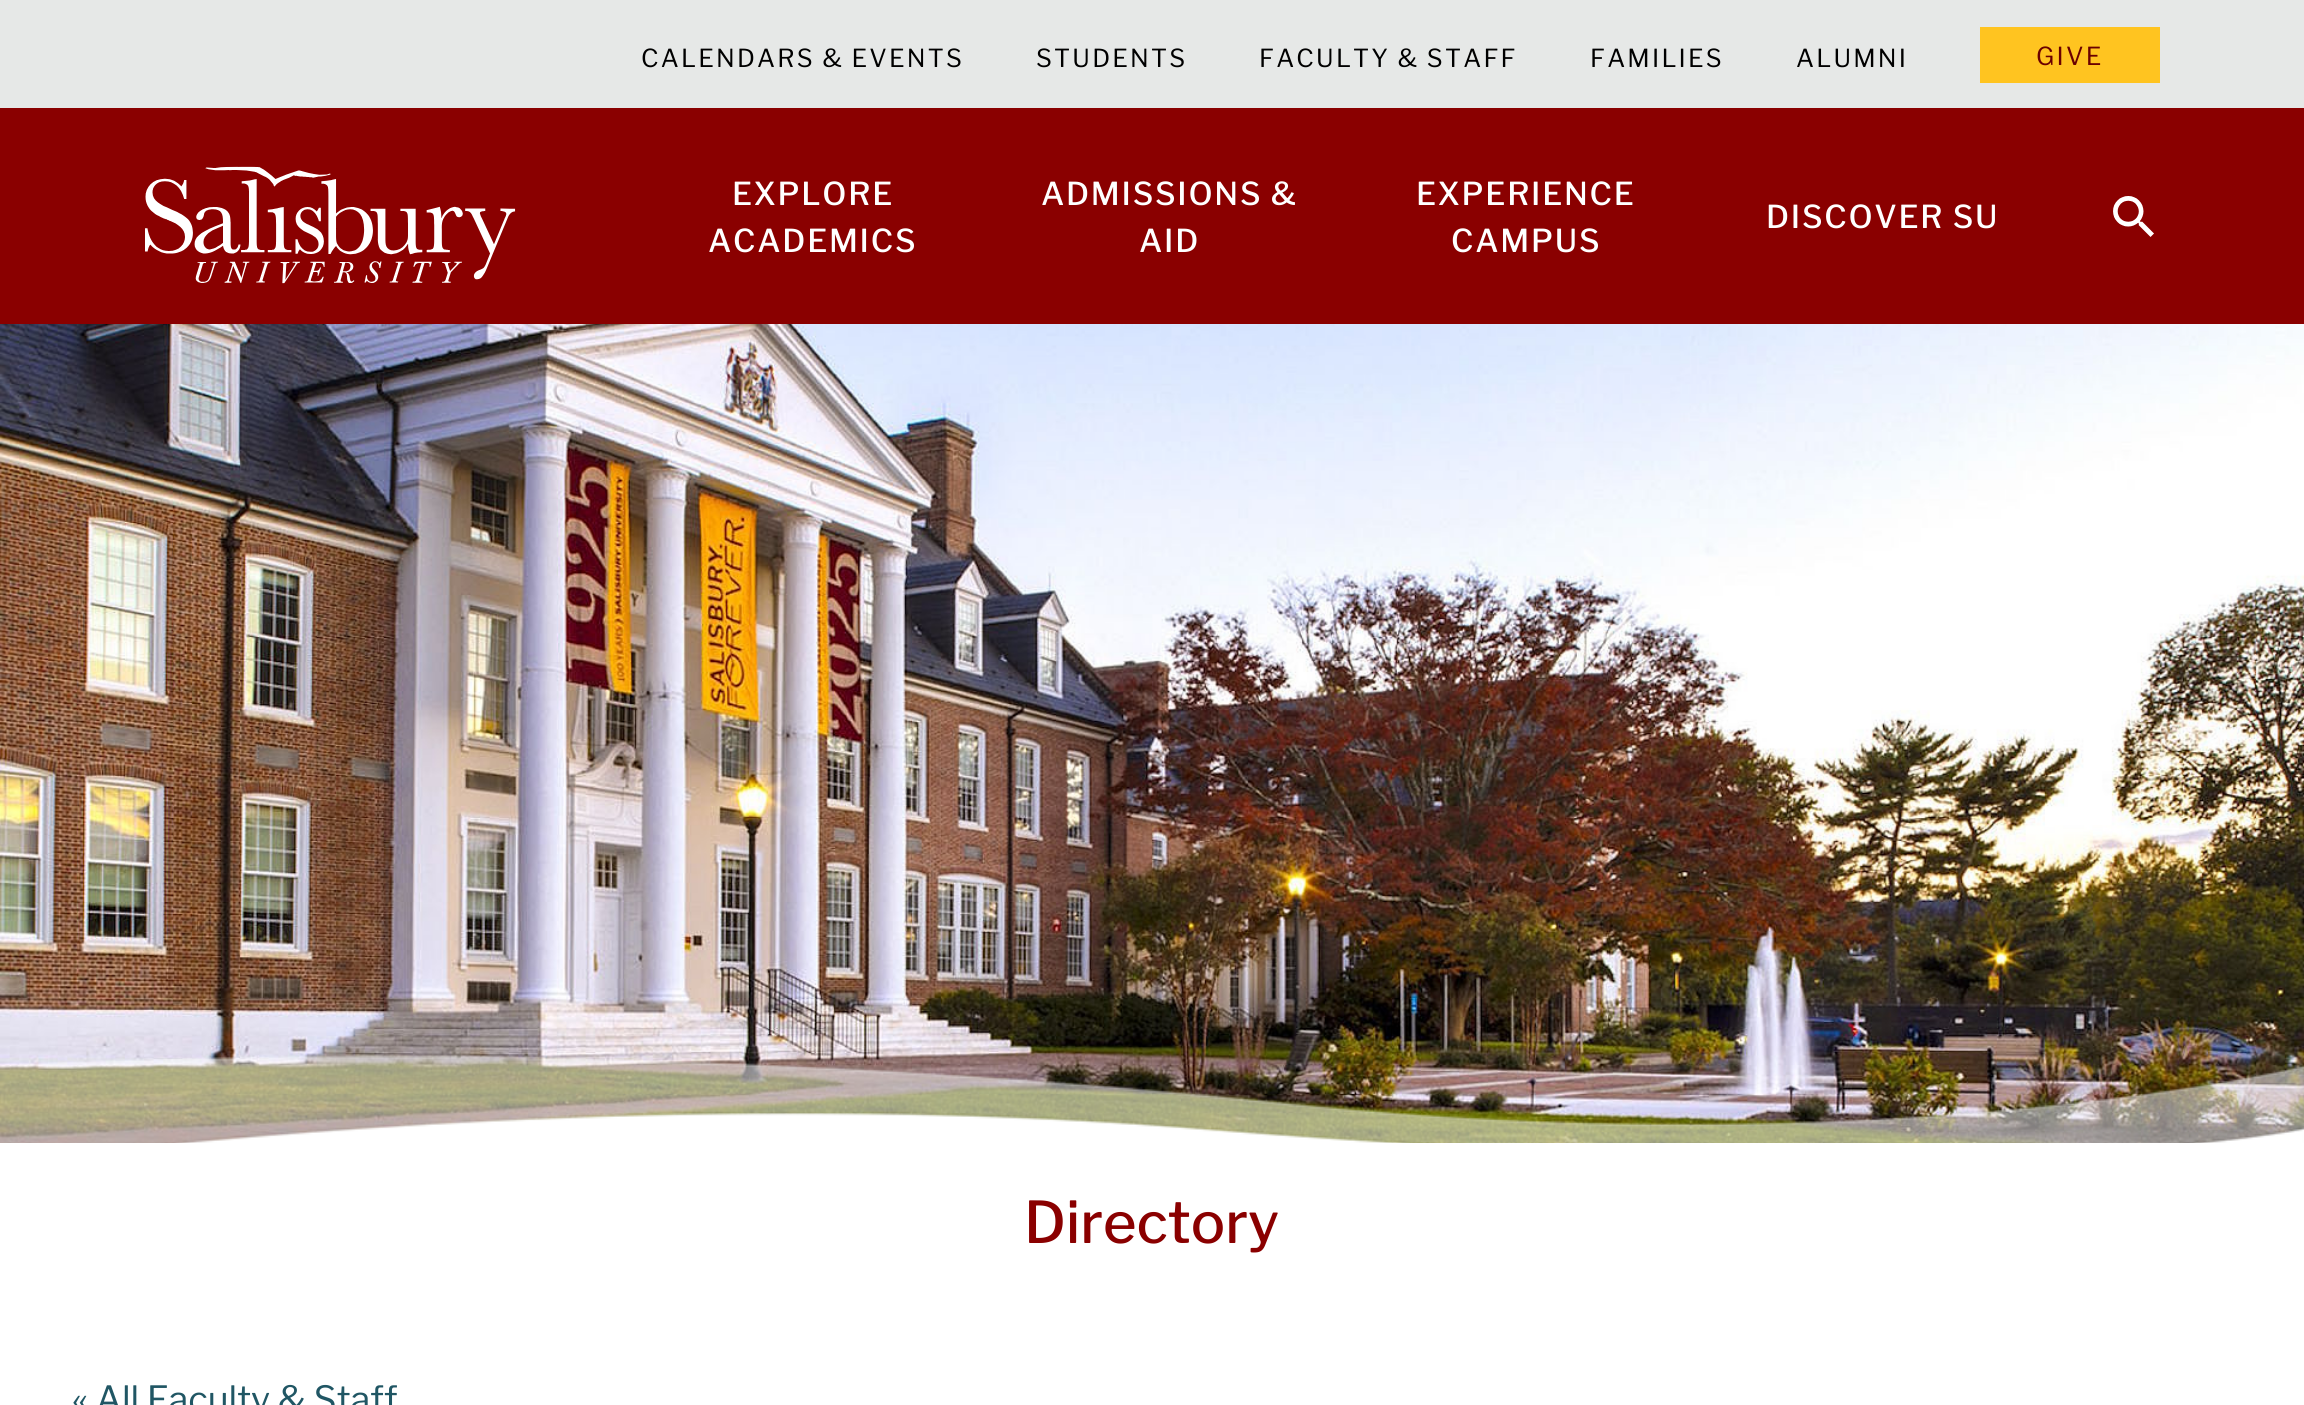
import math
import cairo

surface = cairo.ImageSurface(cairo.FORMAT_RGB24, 2304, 1405)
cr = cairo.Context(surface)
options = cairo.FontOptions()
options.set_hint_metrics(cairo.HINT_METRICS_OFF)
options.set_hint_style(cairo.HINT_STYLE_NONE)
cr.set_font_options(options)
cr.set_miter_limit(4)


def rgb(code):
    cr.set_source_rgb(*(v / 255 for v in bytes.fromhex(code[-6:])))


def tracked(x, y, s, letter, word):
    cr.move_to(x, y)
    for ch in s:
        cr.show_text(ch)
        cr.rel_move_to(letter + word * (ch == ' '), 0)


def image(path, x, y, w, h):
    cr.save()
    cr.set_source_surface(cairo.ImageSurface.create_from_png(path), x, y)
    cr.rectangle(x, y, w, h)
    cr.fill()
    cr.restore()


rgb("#ffffff")
cr.paint()
image("img/1.png", 0, 0, 2304, 108)
rgb("#8a0000")
cr.rectangle(0, 108, 2304, 216)
cr.fill()
image("img/2.png", 145, 166, 371, 118)
rgb("#ffc420")
cr.rectangle(1980, 27, 180, 56)
cr.fill()
image("img/3.png", 2113, 196, 41, 41)
image("img/4.png", 0, 324, 2304, 819)
image("img/5.png", 0, 1055, 2304, 88)
cr.select_font_face("Libre Franklin")
cr.set_font_size(24.75)
rgb("#000000")
for x, y, s in [
    (641, 67, "CALENDARS & EVENTS"),
    (1036, 67, "STUDENTS"),
    (1259, 67, "FACULTY & STAFF"),
    (1590, 67, "FAMILIES"),
    (1796, 67, "ALUMNI"),
]:
    tracked(x, y, s, 2.25, 0)
rgb("#6a0000")
tracked(2036, 65, "GIVE", 2.25, 0)
cr.select_font_face("Libre Franklin Medium")
cr.set_font_size(31.5)
rgb("#ffffff")
for x, y, s in [
    (732, 205, "EXPLORE"),
    (708, 252, "ACADEMICS"),
    (1041, 205, "ADMISSIONS &"),
    (1139, 252, "AID"),
    (1416, 205, "EXPERIENCE"),
    (1451, 252, "CAMPUS"),
    (1766, 228, "DISCOVER SU"),
]:
    tracked(x, y, s, 1.75, 0)
cr.set_font_size(57.5)
rgb("#8a0000")
cr.move_to(1024, 1243)
cr.show_text("Directory")
cr.select_font_face("Libre Franklin")
cr.set_font_size(36)
rgb("#205664")
cr.move_to(72, 1412)
cr.show_text("« All Faculty & Staff")
surface.write_to_png("page.png")
